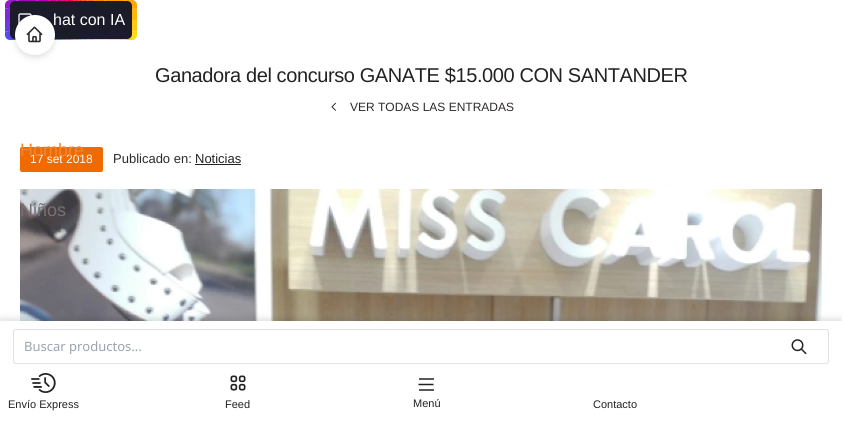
import math
import cairo

surface = cairo.ImageSurface(cairo.FORMAT_RGB24, 842, 421)
cr = cairo.Context(surface)
options = cairo.FontOptions()
options.set_hint_metrics(cairo.HINT_METRICS_OFF)
options.set_hint_style(cairo.HINT_STYLE_NONE)
cr.set_font_options(options)
cr.set_miter_limit(4)


def rgb(code):
    cr.set_source_rgb(*(v / 255 for v in bytes.fromhex(code[-6:])))


def tracked(x, y, s, letter, word):
    cr.move_to(x, y)
    for ch in s:
        cr.show_text(ch)
        cr.rel_move_to(letter + word * (ch == ' '), 0)


def rrect(x, y, w, h, r):
    cr.new_sub_path()
    for i, (u, v) in enumerate([(x + w - r, y + h - r), (x + r, y + h - r), (x + r, y + r), (x + w - r, y + r)]):
        cr.arc(u, v, r, i * math.pi / 2, (i + 1) * math.pi / 2)
    cr.close_path()


def soft_shadow(x, y, w, h, r, blur, alpha):
    cr.push_group_with_content(cairo.CONTENT_ALPHA)
    cr.set_operator(cairo.OPERATOR_SOURCE)
    for i in range(15, -16, -2):
        e = blur * i / 6
        if min(w, h) + 2 * e > 0:
            cr.set_source_rgba(0, 0, 0, alpha * math.erfc((i - 1) / 8.5) / 2)
            rrect(x - e, y - e, w + 2 * e, h + 2 * e, max(0, min(r + e + blur * .6, min(w, h) / 2 + e)))
            cr.fill()
    cr.mask(cr.pop_group())


def image(path, x, y, w, h):
    cr.save()
    cr.set_source_surface(cairo.ImageSurface.create_from_png(path), x, y)
    cr.rectangle(x, y, w, h)
    cr.fill()
    cr.restore()


rgb("#ffffff")
cr.paint()
image("img/2.png", 5, 0, 132, 40)
rgb("#1c1b29")
rrect(10, 1, 122, 38, 5)
cr.fill()
image("img/3.png", 18, 13, 14, 12)
rgb("#000000")
soft_shadow(15, 17, 40, 40, 20, 2.5, 0.06)
soft_shadow(15, 19, 40, 40, 20, 3.5, 0.06)
rgb("#ffffff")
cr.arc(35, 35, 20, 0, 2 * math.pi)
cr.fill()
image("img/1.png", 26, 26, 17, 17)
image("img/4.png", 331, 102, 5, 9)
rgb("#ef6a00")
rrect(20, 147, 83, 25, 2)
cr.fill()
rgb("#222222")
cr.rectangle(195, 164, 46, 1)
cr.fill()
image("img/5.png", 20, 189, 802, 132)
rgb("#000000")
soft_shadow(0, 319, 842, 100, 0, 2.5, 0.06)
soft_shadow(0, 317, 842, 100, 0, 3.5, 0.06)
rgb("#ffffff")
cr.rectangle(0, 321, 842, 100)
cr.fill()
rgb("#e1e3e4")
cr.set_fill_rule(cairo.FILL_RULE_EVEN_ODD)
cr.new_path()
cr.move_to(16, 329)
cr.line_to(770, 329)
cr.line_to(770, 364)
cr.line_to(16, 364)
cr.curve_to(14, 364, 13, 363, 13, 361)
cr.line_to(13, 332)
cr.curve_to(13, 330, 14, 329, 16, 329)
cr.close_path()
cr.move_to(16, 330)
cr.line_to(770, 330)
cr.line_to(770, 363)
cr.line_to(16, 363)
cr.curve_to(15, 363, 14, 362, 14, 361)
cr.line_to(14, 332)
cr.curve_to(14, 331, 15, 330, 16, 330)
cr.close_path()
cr.fill()
cr.new_path()
cr.move_to(770, 329)
cr.line_to(826, 329)
cr.curve_to(828, 329, 829, 330, 829, 332)
cr.line_to(829, 361)
cr.curve_to(829, 363, 828, 364, 826, 364)
cr.line_to(770, 364)
cr.close_path()
cr.move_to(770, 330)
cr.line_to(826, 330)
cr.curve_to(827, 330, 828, 331, 828, 332)
cr.line_to(828, 361)
cr.curve_to(828, 362, 827, 363, 826, 363)
cr.line_to(770, 363)
cr.close_path()
cr.fill()
image("img/6.png", 791, 339, 16, 16)
image("img/7.png", 31, 373, 25, 20)
image("img/8.png", 230, 375, 16, 16)
rgb("#595959")
cr.rectangle(419, 378, 15, 2)
cr.fill()
cr.new_path()
cr.move_to(418.5, 384.5)
cr.line_to(433.5, 384.5)
rgb("#222222")
cr.set_line_width(1.5)
cr.stroke()
rgb("#595959")
cr.rectangle(419, 389, 15, 2)
cr.fill()
cr.select_font_face("Liberation Sans")
cr.set_font_size(16)
rgb("#ffffff")
cr.move_to(53, 25)
cr.show_text("hat con IA")
cr.set_font_size(20)
rgb("#222222")
tracked(155, 82, "Ganadora del concurso GANATE $15.000 CON SANTANDER", -0.4, 0)
cr.set_font_size(12)
rgb("#2d2929")
cr.move_to(350, 111)
cr.show_text("VER TODAS LAS ENTRADAS")
rgb("#ffffff")
cr.move_to(30, 163)
cr.show_text("17 set 2018")
cr.set_font_size(13)
rgb("#2d2929")
cr.move_to(113, 163)
cr.show_text("Publicado en:")
rgb("#222222")
cr.move_to(195, 163)
cr.show_text("Noticias")
cr.set_font_size(18)
rgb("#f28630")
cr.move_to(20, 156)
cr.show_text("Hombre")
rgb("#747074")
cr.move_to(20, 216)
cr.show_text("Niños")
cr.select_font_face("Noto Sans")
cr.set_font_size(13)
rgb("#9ca3af")
cr.move_to(24, 351)
cr.show_text("Buscar productos...")
cr.select_font_face("Liberation Sans")
cr.set_font_size(11)
rgb("#222222")
for x, y, s in [
    (8, 408, "Envío Express"),
    (225, 408, "Feed"),
    (413, 407, "Menú"),
    (593, 408, "Contacto"),
]:
    cr.move_to(x, y)
    cr.show_text(s)
surface.write_to_png("page.png")
